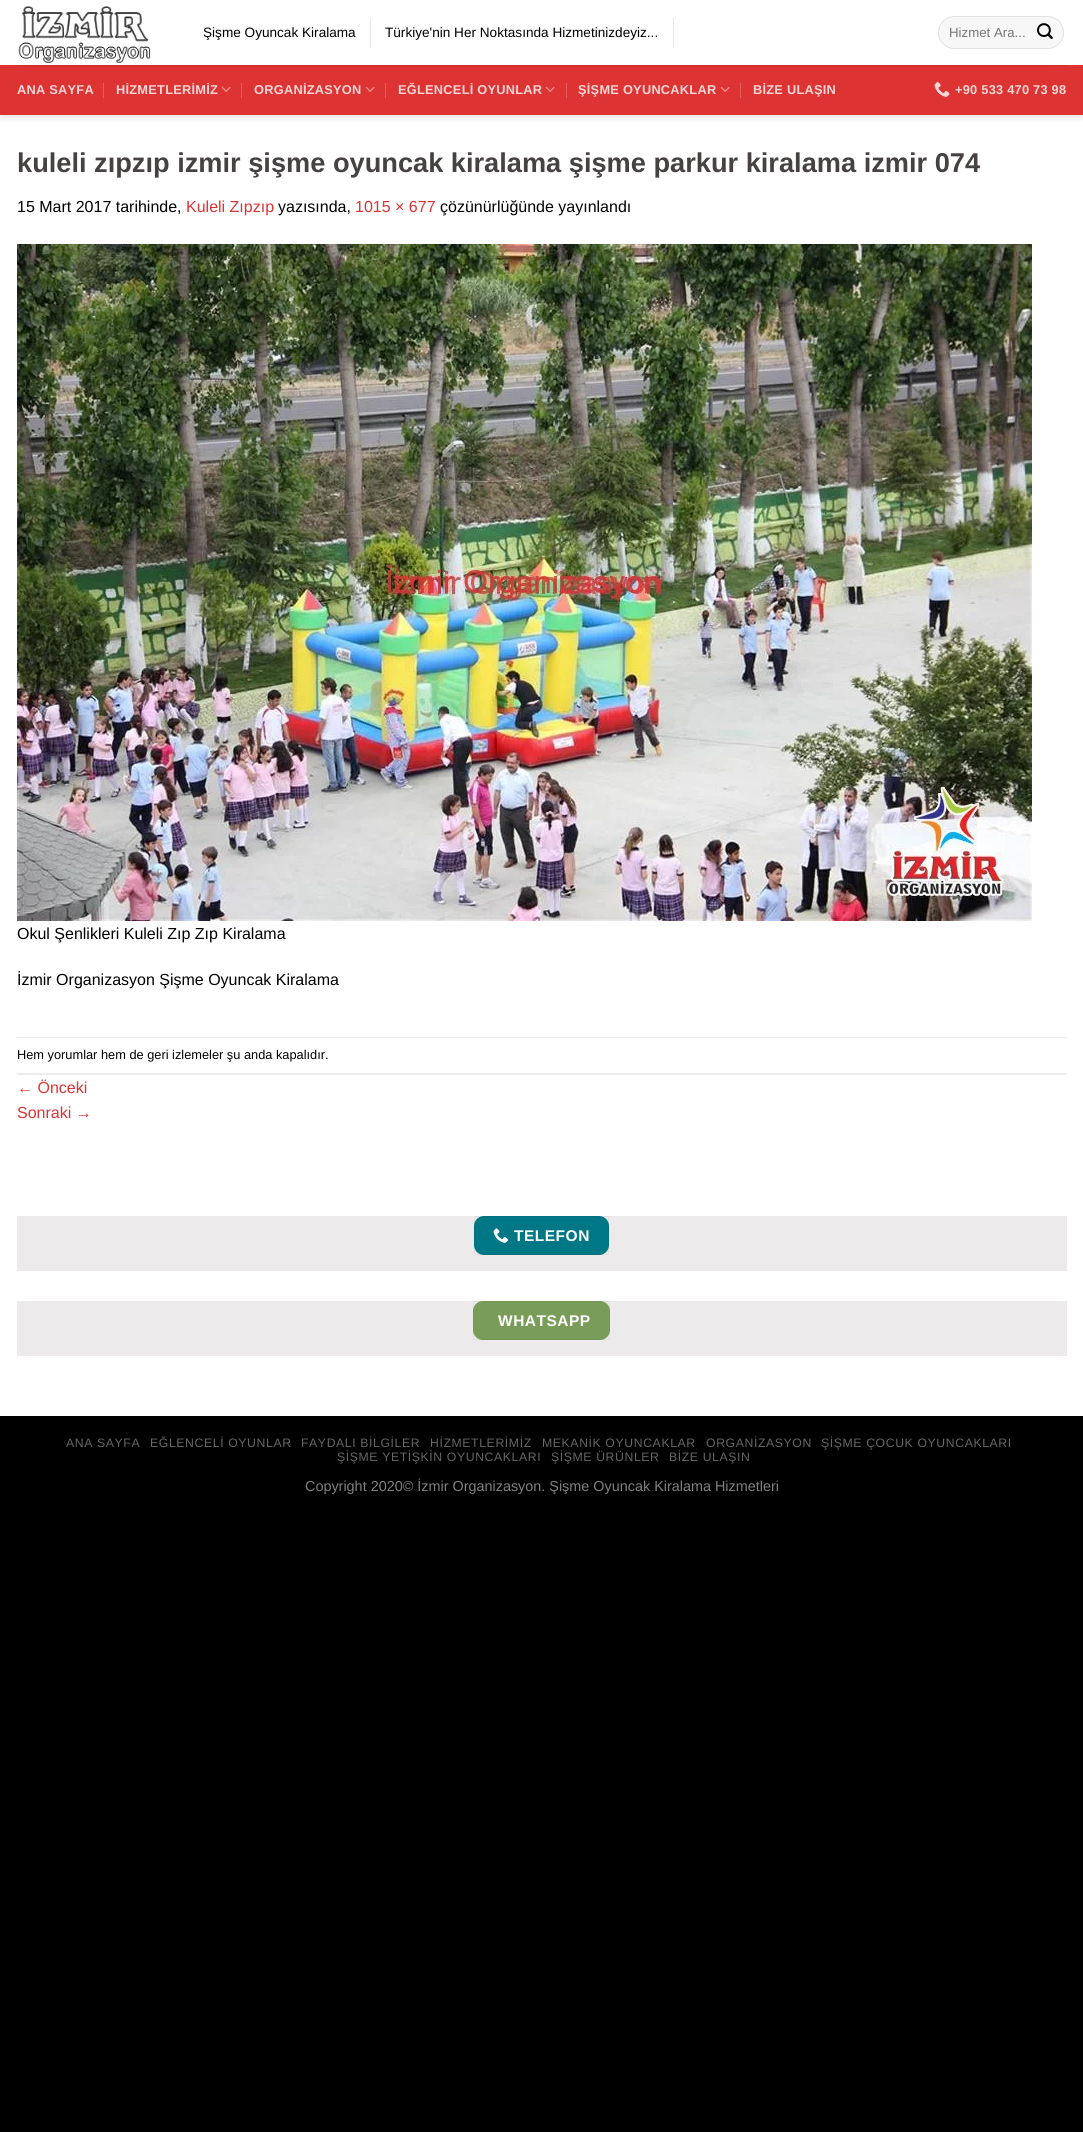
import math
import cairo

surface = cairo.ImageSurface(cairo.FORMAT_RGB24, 1083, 2132)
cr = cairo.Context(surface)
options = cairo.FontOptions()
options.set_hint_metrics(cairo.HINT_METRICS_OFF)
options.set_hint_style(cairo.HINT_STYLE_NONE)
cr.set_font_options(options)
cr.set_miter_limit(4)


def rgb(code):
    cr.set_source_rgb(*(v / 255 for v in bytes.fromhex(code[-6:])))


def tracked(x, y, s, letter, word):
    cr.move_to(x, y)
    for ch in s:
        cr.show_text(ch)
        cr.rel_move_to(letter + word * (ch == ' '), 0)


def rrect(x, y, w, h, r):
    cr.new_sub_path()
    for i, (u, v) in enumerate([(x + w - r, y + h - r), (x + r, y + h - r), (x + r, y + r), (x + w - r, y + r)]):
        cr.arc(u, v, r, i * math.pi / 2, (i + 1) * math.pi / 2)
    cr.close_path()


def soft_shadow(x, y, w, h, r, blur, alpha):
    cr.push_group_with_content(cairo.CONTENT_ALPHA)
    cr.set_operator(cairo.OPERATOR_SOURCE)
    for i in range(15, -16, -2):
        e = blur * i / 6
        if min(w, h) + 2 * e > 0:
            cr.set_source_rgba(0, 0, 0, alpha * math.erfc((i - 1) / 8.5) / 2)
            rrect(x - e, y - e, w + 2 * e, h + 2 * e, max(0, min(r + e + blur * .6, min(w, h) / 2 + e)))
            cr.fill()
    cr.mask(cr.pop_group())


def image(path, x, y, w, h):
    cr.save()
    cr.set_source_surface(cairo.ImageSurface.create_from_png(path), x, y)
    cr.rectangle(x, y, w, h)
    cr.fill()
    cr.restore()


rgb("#000000")
cr.paint()
rgb("#ffffff")
cr.rectangle(0, 0, 1083, 1416)
cr.fill()
cr.save()
cr.rectangle(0, 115, 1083, 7)
cr.clip()
rgb("#000000")
soft_shadow(1, 1, 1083, 115, 0, 5, 0.15)
cr.restore()
image("img/1.png", 18, 6, 133, 57)
rgb("#e6e6e6")
cr.rectangle(370, 18, 1, 30)
cr.fill()
cr.rectangle(673, 18, 1, 30)
cr.fill()
rgb("#f7f7f7")
rrect(938, 16, 126, 33, 16.5)
cr.fill()
rrect(938.5, 16.5, 125, 32, 16)
cr.set_source_rgba(0, 0, 0, 0.09)
cr.set_line_width(1)
cr.stroke()
image("img/2.png", 1037, 23, 16, 16)
for x, y, w, h, color in [
    (0, 65, 1083, 50, "#dd3333"),
    (17, 65, 1050, 1, "#c72e2e"),
    (103, 83, 1, 15, "#e45c5c"),
]:
    rgb(color)
    cr.rectangle(x, y, w, h)
    cr.fill()
image("img/3.png", 221, 86, 10, 6)
cr.rectangle(241, 83, 1, 15)
cr.fill()
image("img/3.png", 365, 86, 10, 6)
cr.rectangle(385, 83, 1, 15)
cr.fill()
image("img/3.png", 545, 86, 10, 6)
cr.rectangle(566, 83, 1, 15)
cr.fill()
image("img/3.png", 720, 86, 10, 6)
cr.rectangle(740, 83, 1, 15)
cr.fill()
image("img/4.png", 934, 82, 16, 15)
image("img/5.png", 17, 244, 1015, 677)
for x, y, w, h, color in [
    (17, 1037, 1050, 1, "#ececec"),
    (17, 1073, 1050, 2, "#ececec"),
    (17, 1216, 1050, 55, "#eceaea"),
]:
    rgb(color)
    cr.rectangle(x, y, w, h)
    cr.fill()
rgb("#007784")
rrect(474, 1216, 135, 39, 10)
cr.fill()
cr.rectangle(474.5, 1216.5, 134, 38)
cr.set_source_rgba(0, 0, 0, 0.05)
cr.stroke()
image("img/6.png", 493, 1228, 15, 15)
rgb("#eceaea")
cr.rectangle(17, 1301, 1050, 55)
cr.fill()
rgb("#7a9c59")
rrect(473, 1301, 137, 39, 10)
cr.fill()
cr.rectangle(473.5, 1301.5, 136, 38)
cr.set_source_rgba(0, 0, 0, 0.05)
cr.stroke()
cr.select_font_face("Liberation Sans")
cr.set_font_size(13.6)
rgb("#000000")
cr.move_to(203, 37)
cr.show_text("Şişme Oyuncak Kiralama")
cr.move_to(385, 37)
cr.show_text("Türkiye'nin Her Noktasında Hizmetinizdeyiz...")
cr.set_font_size(13.25)
rgb("#757575")
cr.move_to(949, 37)
cr.show_text("Hizmet Ara...")
cr.select_font_face("Liberation Sans", cairo.FONT_SLANT_NORMAL, cairo.FONT_WEIGHT_BOLD)
cr.set_font_size(12.8)
rgb("#f8d6d6")
for x, y, s in [
    (17, 94, "ANA SAYFA"),
    (116, 94, "HİZMETLERİMİZ"),
    (254, 94, "ORGANİZASYON"),
    (398, 94, "EĞLENCELİ OYUNLAR"),
    (578, 94, "ŞİŞME OYUNCAKLAR"),
    (753, 94, "BİZE ULAŞIN"),
    (955, 94, "+90 533 470 73 98"),
]:
    tracked(x, y, s, 0.25, 0)
cr.set_font_size(27.2)
rgb("#464242")
cr.move_to(17, 172)
cr.show_text("kuleli zıpzıp izmir şişme oyuncak kiralama şişme parkur kiralama izmir 074")
cr.select_font_face("Liberation Sans")
cr.set_font_size(16)
rgb("#000000")
cr.move_to(17, 212)
cr.show_text("15 Mart 2017 tarihinde,")
rgb("#dd3333")
cr.move_to(186, 212)
cr.show_text("Kuleli Zıpzıp")
rgb("#000000")
cr.move_to(278, 212)
cr.show_text("yazısında,")
rgb("#dd3333")
cr.move_to(355, 212)
cr.show_text("1015 × 677")
rgb("#000000")
for x, y, s in [
    (440, 212, "çözünürlüğünde yayınlandı"),
    (17, 939, "Okul Şenlikleri Kuleli Zıp Zıp Kiralama"),
    (17, 985, "İzmir Organizasyon Şişme Oyuncak Kiralama"),
]:
    cr.move_to(x, y)
    cr.show_text(s)
cr.set_font_size(12.8)
cr.move_to(17, 1059)
cr.show_text("Hem yorumlar hem de geri izlemeler şu anda kapalıdır.")
cr.set_font_size(16)
rgb("#dd3333")
cr.move_to(17, 1093)
cr.show_text("← Önceki")
cr.move_to(17, 1118)
cr.show_text("Sonraki →")
cr.select_font_face("Liberation Sans", cairo.FONT_SLANT_NORMAL, cairo.FONT_WEIGHT_BOLD)
cr.set_font_size(15.5)
rgb("#ffffff")
tracked(514, 1241, "TELEFON", 0.5, 0)
tracked(498, 1326, "WHATSAPP", 0.5, 0)
cr.select_font_face("Liberation Sans")
cr.set_font_size(12.25)
rgb("#666666")
for x, y, s in [
    (66, 1447, "ANA SAYFA"),
    (150, 1447, "EĞLENCELİ OYUNLAR"),
    (301, 1447, "FAYDALI BİLGİLER"),
    (430, 1447, "HİZMETLERİMİZ"),
    (542, 1447, "MEKANİK OYUNCAKLAR"),
    (706, 1447, "ORGANİZASYON"),
    (821, 1447, "ŞİŞME ÇOCUK OYUNCAKLARI"),
    (337, 1461, "ŞİŞME YETİŞKİN OYUNCAKLARI"),
    (551, 1461, "ŞİŞME ÜRÜNLER"),
    (669, 1461, "BİZE ULAŞIN"),
]:
    tracked(x, y, s, 0.6, 0)
cr.set_font_size(14.4)
rgb("#808080")
cr.move_to(305, 1491)
cr.show_text("Copyright 2020© İzmir Organizasyon. Şişme Oyuncak Kiralama Hizmetleri")
surface.write_to_png("page.png")
